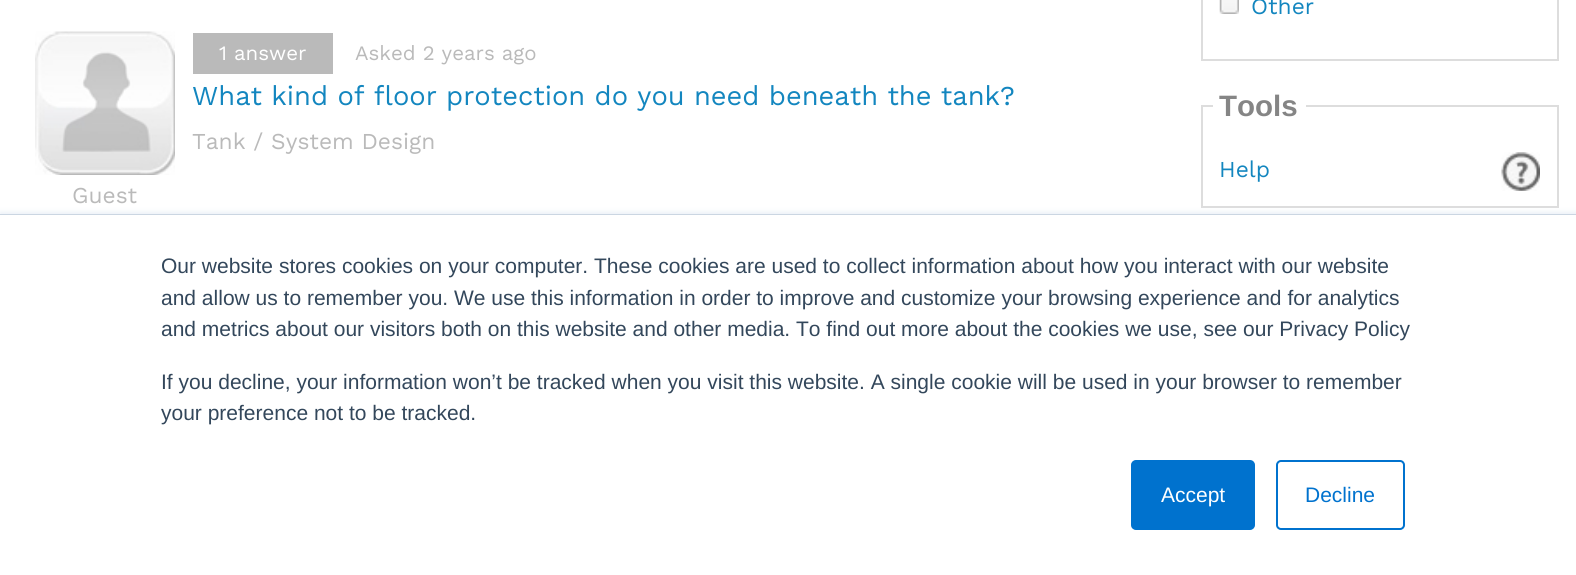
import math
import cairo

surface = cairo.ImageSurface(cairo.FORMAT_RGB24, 1576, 575)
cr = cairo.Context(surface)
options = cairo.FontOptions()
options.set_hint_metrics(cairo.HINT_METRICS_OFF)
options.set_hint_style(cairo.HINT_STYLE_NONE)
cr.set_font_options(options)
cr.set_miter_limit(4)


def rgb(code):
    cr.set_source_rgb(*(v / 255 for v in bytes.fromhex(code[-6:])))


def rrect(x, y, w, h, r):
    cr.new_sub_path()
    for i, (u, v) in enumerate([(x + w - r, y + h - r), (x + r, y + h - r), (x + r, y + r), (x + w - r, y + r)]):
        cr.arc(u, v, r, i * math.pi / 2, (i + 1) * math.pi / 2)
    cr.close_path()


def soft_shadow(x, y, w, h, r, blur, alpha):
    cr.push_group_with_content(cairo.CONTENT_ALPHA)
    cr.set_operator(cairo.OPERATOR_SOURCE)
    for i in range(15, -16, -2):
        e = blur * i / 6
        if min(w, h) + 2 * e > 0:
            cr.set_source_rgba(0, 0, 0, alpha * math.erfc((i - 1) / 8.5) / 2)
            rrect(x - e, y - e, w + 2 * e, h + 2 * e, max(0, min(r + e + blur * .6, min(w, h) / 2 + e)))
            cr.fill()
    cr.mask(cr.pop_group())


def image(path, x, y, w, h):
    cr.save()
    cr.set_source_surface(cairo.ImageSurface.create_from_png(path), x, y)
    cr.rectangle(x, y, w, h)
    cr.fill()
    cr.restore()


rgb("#ffffff")
cr.paint()
rgb("#bababa")
cr.rectangle(193, 33, 140, 41)
cr.fill()
image("img/1.png", 35, 31, 140, 144)
cr.rectangle(1202, -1, 356, 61)
rgb("#dddddd")
cr.stroke()
image("img/2.png", 1219, 0, 20, 14)
cr.rectangle(1202, 106, 356, 101)
cr.stroke()
rgb("#ffffff")
cr.rectangle(1213, 105, 93, 2)
cr.fill()
image("img/3.png", 1501, 152, 39, 39)
rgb("#eaf0f6")
soft_shadow(0, 212, 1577, 362, 0, 2.5, 1)
rgb("#cbd6e2")
cr.rectangle(0, 214, 1576, 1)
cr.fill()
rgb("#ffffff")
cr.rectangle(0, 215, 1576, 360)
cr.fill()
rgb("#0072ce")
rrect(1132, 461, 122, 68, 4)
cr.fill_preserve()
cr.stroke()
rrect(1277, 461, 127, 68, 4)
cr.stroke()
cr.select_font_face("Work Sans")
cr.set_font_size(20.5)
rgb("#ffffff")
cr.move_to(219, 60)
cr.show_text("1 answer")
rgb("#bababa")
cr.move_to(355, 60)
cr.show_text("Asked 2 years ago")
cr.set_font_size(27.3)
rgb("#1386bf")
cr.move_to(192, 105)
cr.show_text("What kind of floor protection do you need beneath the tank?")
cr.set_font_size(22.75)
rgb("#bababa")
cr.move_to(192, 149)
cr.show_text("Tank / System Design")
cr.move_to(72, 203)
cr.show_text("Guest")
rgb("#1386bf")
cr.move_to(1251, 14)
cr.show_text("Other")
cr.select_font_face("Liberation Sans", cairo.FONT_SLANT_NORMAL, cairo.FONT_WEIGHT_BOLD)
cr.set_font_size(29.5)
rgb("#858585")
cr.move_to(1219, 116)
cr.show_text("Tools")
cr.select_font_face("Work Sans")
cr.set_font_size(22.75)
rgb("#1386bf")
cr.move_to(1219, 177)
cr.show_text("Help")
cr.select_font_face("Liberation Sans")
cr.set_font_size(21)
rgb("#33475b")
for x, y, s in [
    (161, 273, "Our website stores cookies on your computer. These cookies are used to collect information about how you interact with our website"),
    (161, 305, "and allow us to remember you. We use this information in order to improve and customize your browsing experience and for analytics"),
    (161, 336, "and metrics about our visitors both on this website and other media. To find out more about the cookies we use, see our Privacy Policy"),
    (161, 389, "If you decline, your information won’t be tracked when you visit this website. A single cookie will be used in your browser to remember"),
    (161, 420, "your preference not to be tracked."),
]:
    cr.move_to(x, y)
    cr.show_text(s)
rgb("#ffffff")
cr.move_to(1161, 502)
cr.show_text("Accept")
rgb("#0072ce")
cr.move_to(1305, 502)
cr.show_text("Decline")
surface.write_to_png("page.png")
